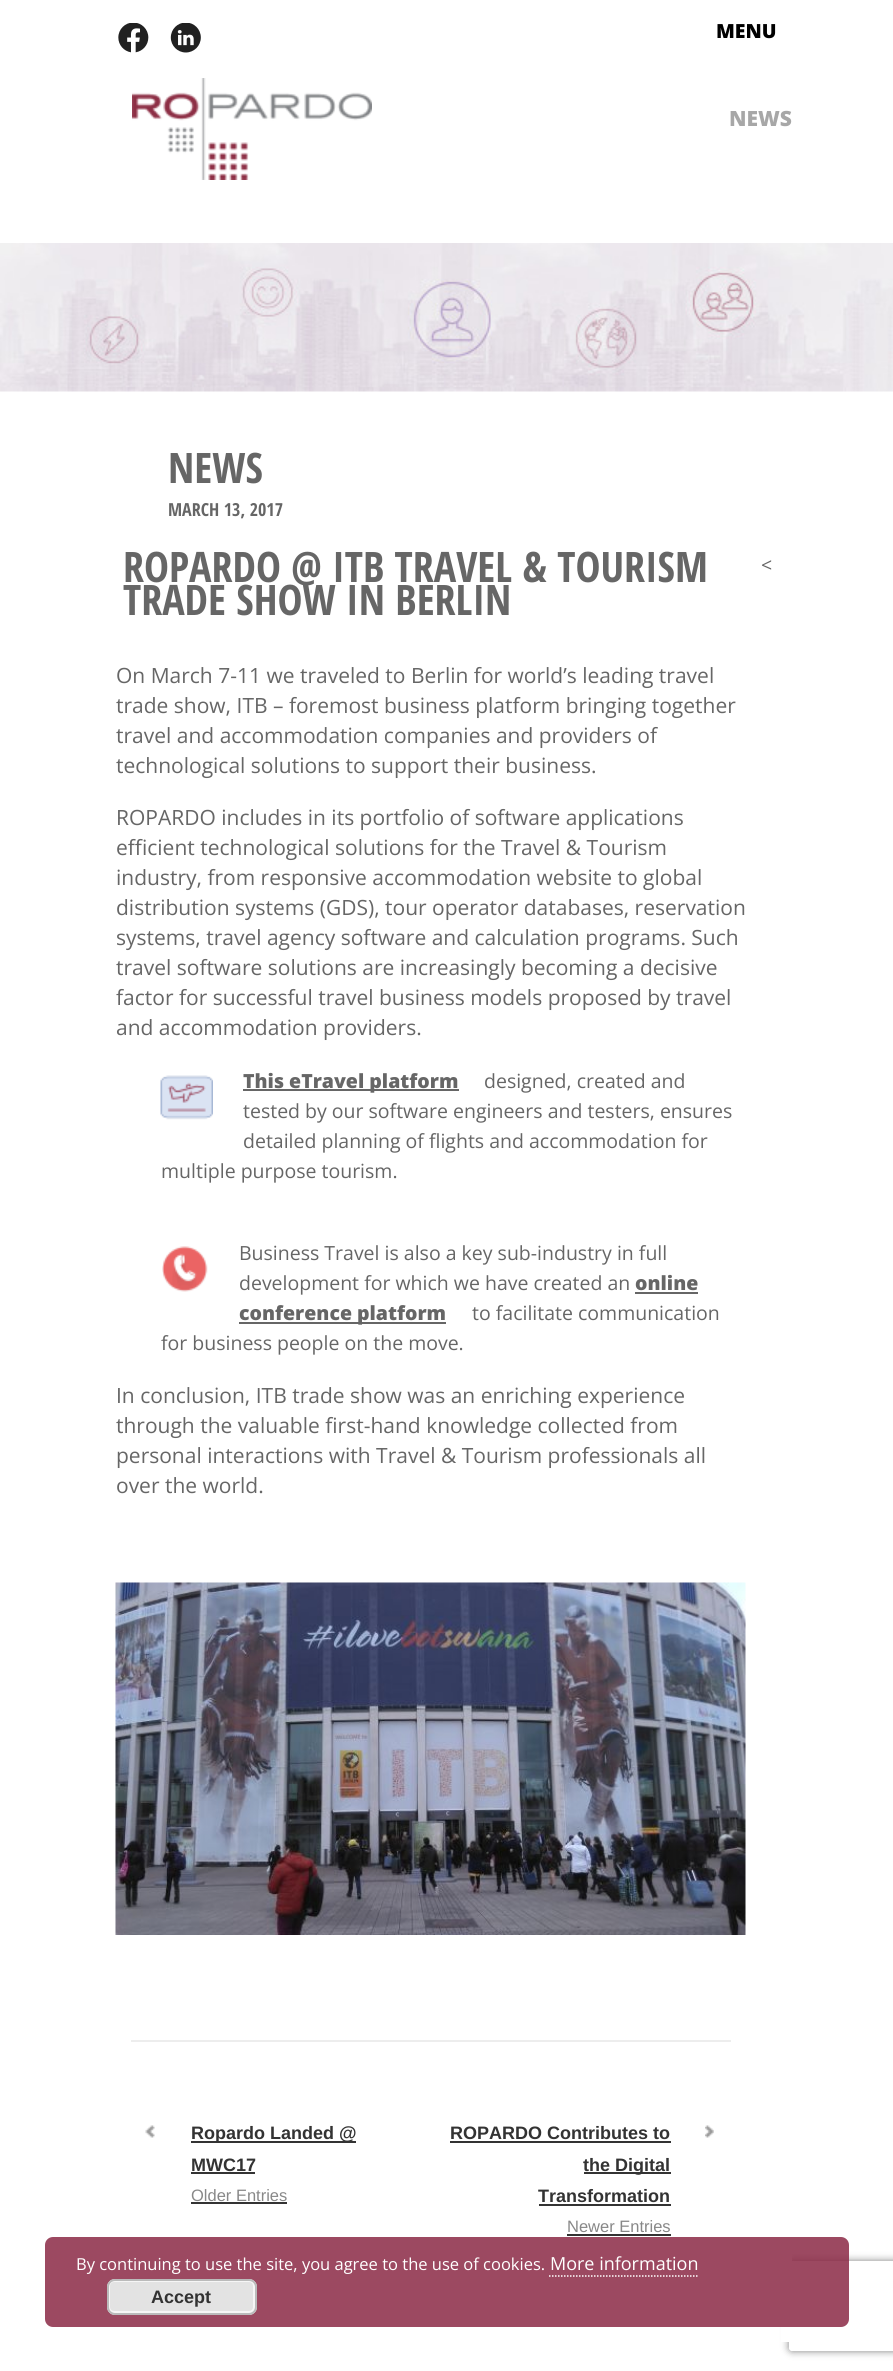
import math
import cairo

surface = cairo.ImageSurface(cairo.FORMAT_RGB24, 893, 2371)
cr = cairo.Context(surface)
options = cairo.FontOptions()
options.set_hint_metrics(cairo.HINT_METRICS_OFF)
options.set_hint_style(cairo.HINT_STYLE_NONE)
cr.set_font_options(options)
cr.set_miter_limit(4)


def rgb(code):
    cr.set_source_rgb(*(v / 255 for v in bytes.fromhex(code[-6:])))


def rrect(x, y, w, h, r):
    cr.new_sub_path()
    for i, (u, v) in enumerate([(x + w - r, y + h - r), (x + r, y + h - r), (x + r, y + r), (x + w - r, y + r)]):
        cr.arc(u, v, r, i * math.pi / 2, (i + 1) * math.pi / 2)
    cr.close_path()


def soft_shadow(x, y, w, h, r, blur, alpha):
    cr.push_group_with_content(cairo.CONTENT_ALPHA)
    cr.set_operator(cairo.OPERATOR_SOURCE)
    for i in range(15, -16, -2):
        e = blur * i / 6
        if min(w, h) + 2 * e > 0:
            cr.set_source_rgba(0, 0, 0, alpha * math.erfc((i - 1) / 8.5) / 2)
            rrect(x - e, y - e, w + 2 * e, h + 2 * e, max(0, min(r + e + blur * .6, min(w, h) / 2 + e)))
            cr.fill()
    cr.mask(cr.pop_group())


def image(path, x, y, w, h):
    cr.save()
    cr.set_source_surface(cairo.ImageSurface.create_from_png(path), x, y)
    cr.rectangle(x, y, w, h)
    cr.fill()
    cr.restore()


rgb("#ffffff")
cr.paint()
image("img/1.png", 118, 23, 31, 30)
image("img/2.png", 170, 23, 31, 30)
image("img/3.png", 132, 78, 240, 102)
image("img/4.png", 0, 243, 893, 149)
cr.save()
cr.set_fill_rule(cairo.FILL_RULE_EVEN_ODD)
cr.new_path()
cr.move_to(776, 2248)
cr.line_to(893, 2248)
cr.line_to(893, 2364)
cr.line_to(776, 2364)
cr.close_path()
cr.move_to(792, 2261)
cr.line_to(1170, 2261)
cr.curve_to(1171.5, 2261, 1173, 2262.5, 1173, 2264)
cr.line_to(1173, 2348)
cr.curve_to(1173, 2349.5, 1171.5, 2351, 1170, 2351)
cr.line_to(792, 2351)
cr.curve_to(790.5, 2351, 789, 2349.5, 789, 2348)
cr.line_to(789, 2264)
cr.curve_to(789, 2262.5, 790.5, 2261, 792, 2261)
cr.close_path()
cr.clip()
rgb("#808080")
soft_shadow(789, 2261, 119, 90, 3, 4, 1)
cr.restore()
rgb("#ffffff")
cr.rectangle(781, 2254, 11, 88)
cr.fill()
image("img/5.png", 160, 1075, 53, 45)
rgb("#666666")
cr.rectangle(243, 1089, 216, 2)
cr.fill()
image("img/6.png", 162, 1246, 46, 46)
cr.rectangle(635, 1292, 63, 2)
cr.fill()
cr.rectangle(239, 1322, 207, 2)
cr.fill()
image("img/7.png", 115, 1582, 631, 353)
rgb("#ededed")
cr.rectangle(131, 2040, 600, 2)
cr.fill()
image("img/8.png", 145, 2125, 10, 13)
for x, y, w, h, color in [
    (191, 2141, 165, 2, "#333333"),
    (191, 2172, 64, 2, "#333333"),
    (191, 2202, 96, 2, "#333333"),
]:
    rgb(color)
    cr.rectangle(x, y, w, h)
    cr.fill()
image("img/9.png", 705, 2125, 9, 13)
for x, y, w, h, color in [
    (450, 2141, 221, 2, "#333333"),
    (584, 2172, 87, 2, "#333333"),
    (539, 2204, 132, 2, "#333333"),
    (567, 2234, 104, 2, "#333333"),
]:
    rgb(color)
    cr.rectangle(x, y, w, h)
    cr.fill()
cr.set_source_rgba(0.545, 0.161, 0.275, 0.85)
rrect(45, 2237, 804, 90, 8)
cr.fill()
cr.new_path()
cr.move_to(549, 2276)
cr.line_to(697.5, 2276)
rgb("#ffffff")
cr.set_line_width(1.5)
cr.set_dash([1.5, 1.5])
cr.stroke()
rgb("#e3e3e3")
rrect(107, 2279, 150, 36, 8)
cr.fill()
rrect(109, 2281, 145, 31, 5)
rgb("#f6f6f6")
cr.set_line_width(2)
cr.set_dash([])
cr.stroke()
rrect(108, 2280, 148, 34, 7)
rgb("#bbbbbb")
cr.stroke()
cr.select_font_face("Open Sans ExtraBold")
cr.set_font_size(19.5)
rgb("#000000")
cr.move_to(716, 38)
cr.show_text("MENU")
cr.set_font_size(21)
rgb("#a7a7a7")
cr.move_to(729, 126)
cr.show_text("NEWS")
cr.select_font_face("Open Sans Condensed", cairo.FONT_SLANT_NORMAL, cairo.FONT_WEIGHT_BOLD)
cr.set_font_size(42)
rgb("#666666")
cr.move_to(168, 483)
cr.show_text("NEWS")
cr.set_font_size(18)
cr.move_to(168, 516)
cr.show_text("MARCH 13, 2017")
cr.set_font_size(42)
cr.move_to(123, 582)
cr.show_text("ROPARDO @ ITB TRAVEL & TOURISM")
cr.move_to(123, 615)
cr.show_text("TRADE SHOW IN BERLIN")
cr.select_font_face("Open Sans")
cr.set_font_size(19.5)
cr.move_to(761, 572)
cr.show_text("<")
cr.set_font_size(21)
for x, y, s in [
    (116, 683, "On March 7-11 we traveled to Berlin for world’s leading travel"),
    (116, 713, "trade show, ITB – foremost business platform bringing together"),
    (116, 743, "travel and accommodation companies and providers of"),
    (116, 773, "technological solutions to support their business."),
    (116, 825, "ROPARDO includes in its portfolio of software applications"),
    (116, 855, "efficient technological solutions for the Travel & Tourism"),
    (116, 885, "industry, from responsive accommodation website to global"),
    (116, 915, "distribution systems (GDS), tour operator databases, reservation"),
    (116, 945, "systems, travel agency software and calculation programs. Such"),
    (116, 975, "travel software solutions are increasingly becoming a decisive"),
    (116, 1005, "factor for successful travel business models proposed by travel"),
    (116, 1035, "and accommodation providers."),
]:
    cr.move_to(x, y)
    cr.show_text(s)
cr.select_font_face("Open Sans ExtraBold")
cr.set_font_size(19.5)
cr.move_to(243, 1088)
cr.show_text("This eTravel platform")
cr.select_font_face("Open Sans")
for x, y, s in [
    (484, 1088, "designed, created and"),
    (243, 1118, "tested by our software engineers and testers, ensures"),
    (243, 1148, "detailed planning of flights and accommodation for"),
    (161, 1178, "multiple purpose tourism."),
    (239, 1260, "Business Travel is also a key sub-industry in full"),
]:
    cr.move_to(x, y)
    cr.show_text(s)
cr.select_font_face("Open Sans ExtraBold")
cr.move_to(635, 1290)
cr.show_text("online")
cr.select_font_face("Open Sans")
cr.move_to(239, 1290)
cr.show_text("development for which we have created an")
cr.select_font_face("Open Sans ExtraBold")
cr.move_to(239, 1320)
cr.show_text("conference platform")
cr.select_font_face("Open Sans")
cr.move_to(472, 1320)
cr.show_text("to facilitate communication")
cr.move_to(161, 1350)
cr.show_text("for business people on the move.")
cr.set_font_size(21)
for x, y, s in [
    (116, 1403, "In conclusion, ITB trade show was an enriching experience"),
    (116, 1433, "through the valuable first-hand knowledge collected from"),
    (116, 1463, "personal interactions with Travel & Tourism professionals all"),
    (116, 1493, "over the world."),
]:
    cr.move_to(x, y)
    cr.show_text(s)
cr.select_font_face("Liberation Sans", cairo.FONT_SLANT_NORMAL, cairo.FONT_WEIGHT_BOLD)
cr.set_font_size(18)
rgb("#333333")
cr.move_to(191, 2139)
cr.show_text("Ropardo Landed @")
cr.move_to(191, 2171)
cr.show_text("MWC17")
cr.select_font_face("Liberation Sans")
cr.set_font_size(16.5)
rgb("#888888")
cr.move_to(191, 2201)
cr.show_text("Older Entries")
cr.select_font_face("Liberation Sans", cairo.FONT_SLANT_NORMAL, cairo.FONT_WEIGHT_BOLD)
cr.set_font_size(18)
rgb("#333333")
for x, y, s in [
    (450, 2139, "ROPARDO Contributes to"),
    (583, 2171, "the Digital"),
    (538, 2202, "Transformation"),
]:
    cr.move_to(x, y)
    cr.show_text(s)
cr.select_font_face("Liberation Sans")
cr.set_font_size(16.5)
rgb("#888888")
cr.move_to(567, 2232)
cr.show_text("Newer Entries")
cr.select_font_face("Open Sans")
rgb("#ffffff")
cr.move_to(76, 2270)
cr.show_text("By continuing to use the site, you agree to the use of cookies.")
cr.set_font_size(18)
cr.move_to(550, 2270)
cr.show_text("More information")
cr.select_font_face("Liberation Sans", cairo.FONT_SLANT_NORMAL, cairo.FONT_WEIGHT_BOLD)
rgb("#333333")
cr.move_to(151, 2303)
cr.show_text("Accept")
surface.write_to_png("page.png")
